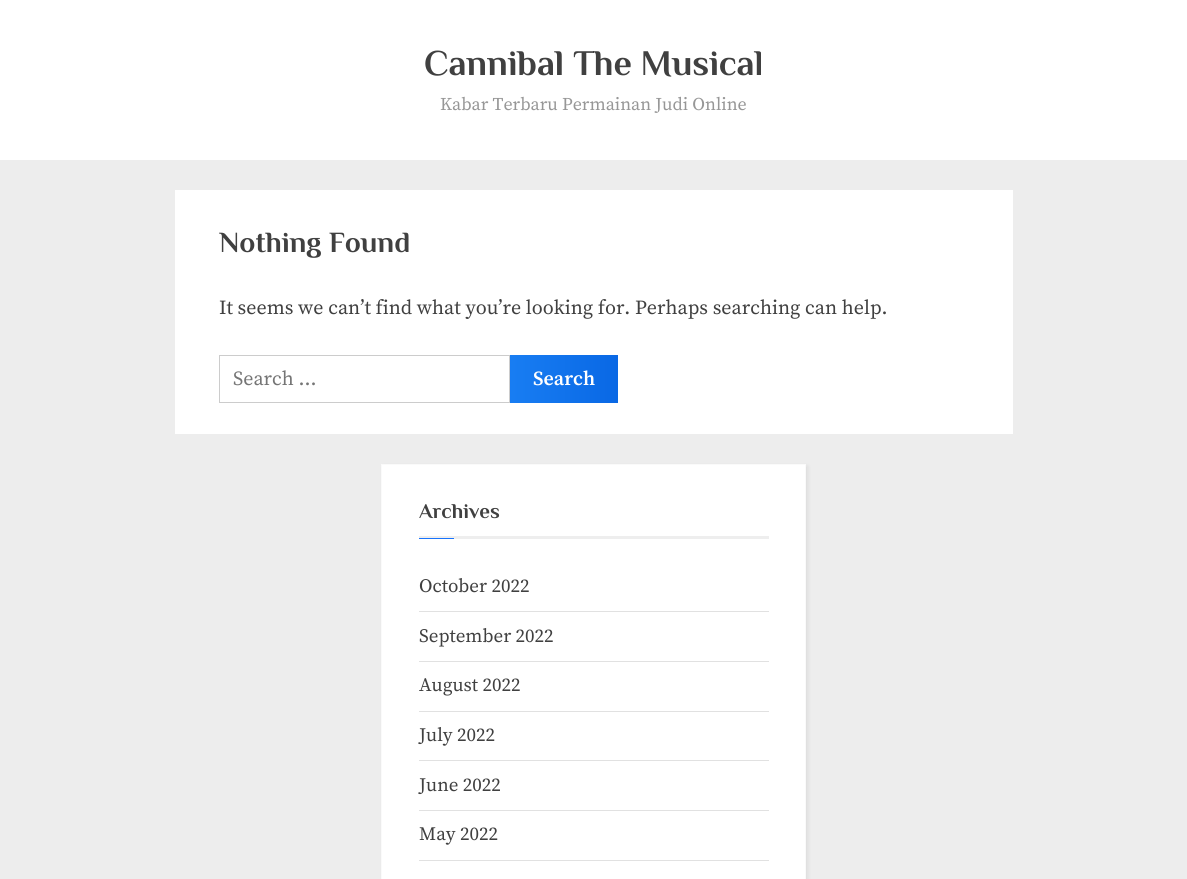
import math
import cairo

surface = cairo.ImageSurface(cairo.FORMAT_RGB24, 1187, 879)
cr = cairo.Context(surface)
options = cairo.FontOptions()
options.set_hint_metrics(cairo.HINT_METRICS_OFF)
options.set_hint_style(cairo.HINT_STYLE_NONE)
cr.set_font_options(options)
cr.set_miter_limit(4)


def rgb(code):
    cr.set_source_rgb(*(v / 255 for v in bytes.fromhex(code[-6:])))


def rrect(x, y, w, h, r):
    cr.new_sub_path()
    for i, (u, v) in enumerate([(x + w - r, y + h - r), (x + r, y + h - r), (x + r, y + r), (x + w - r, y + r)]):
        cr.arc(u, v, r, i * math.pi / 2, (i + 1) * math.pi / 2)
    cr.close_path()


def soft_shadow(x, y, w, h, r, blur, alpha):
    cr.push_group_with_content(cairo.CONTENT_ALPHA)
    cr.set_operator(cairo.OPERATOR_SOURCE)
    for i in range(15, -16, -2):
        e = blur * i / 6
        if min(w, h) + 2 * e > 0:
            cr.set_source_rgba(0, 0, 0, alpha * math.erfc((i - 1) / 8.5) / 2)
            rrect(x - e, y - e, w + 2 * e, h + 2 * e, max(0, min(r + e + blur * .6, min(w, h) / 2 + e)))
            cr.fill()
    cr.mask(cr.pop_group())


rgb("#ededed")
cr.paint()
rgb("#ffffff")
cr.rectangle(0, 0, 1187, 160)
cr.fill()
cr.rectangle(175, 190, 838, 244)
cr.fill()
cr.rectangle(219.5, 355.5, 290, 47)
rgb("#cccccc")
cr.set_line_width(1)
cr.stroke()
gradient = cairo.LinearGradient(308, 379, 513, 379)
gradient.add_color_stop_rgba(0, 0.094, 0.49, 0.949, 1)
gradient.add_color_stop_rgba(0.51, 0.035, 0.408, 0.898, 1)
gradient.add_color_stop_rgba(1, 0.094, 0.49, 0.949, 1)
cr.set_source(gradient)
cr.rectangle(510, 355, 3, 48)
cr.fill()
gradient = cairo.LinearGradient(513, 379, 718, 379)
gradient.add_color_stop_rgba(0, 0.094, 0.49, 0.949, 1)
gradient.add_color_stop_rgba(0.51, 0.035, 0.408, 0.898, 1)
gradient.add_color_stop_rgba(1, 0.094, 0.49, 0.949, 1)
cr.set_source(gradient)
cr.rectangle(513, 355, 105, 48)
cr.fill()
rgb("#000000")
soft_shadow(383, 466, 425, 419, 0, 2, 0.07)
rgb("#ffffff")
cr.rectangle(381.5, 464.5, 424, 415)
cr.fill_preserve()
rgb("#fafafa")
cr.stroke()
for x, y, w, h, color in [
    (419, 536, 350, 3, "#eeeeee"),
    (419, 538, 35, 1, "#1974fc"),
    (419, 611, 350, 1, "#e1e1e1"),
    (419, 661, 350, 1, "#e1e1e1"),
    (419, 711, 350, 1, "#e1e1e1"),
    (419, 760, 350, 1, "#e1e1e1"),
    (419, 810, 350, 1, "#e1e1e1"),
    (419, 860, 350, 1, "#e1e1e1"),
]:
    rgb(color)
    cr.rectangle(x, y, w, h)
    cr.fill()
cr.select_font_face("Philosopher", cairo.FONT_SLANT_NORMAL, cairo.FONT_WEIGHT_BOLD)
cr.set_font_size(36)
rgb("#404040")
cr.move_to(424, 75)
cr.show_text("Cannibal The Musical")
cr.select_font_face("Source Serif Pro")
cr.set_font_size(18)
rgb("#979797")
cr.move_to(440, 110)
cr.show_text("Kabar Terbaru Permainan Judi Online")
cr.select_font_face("Philosopher", cairo.FONT_SLANT_NORMAL, cairo.FONT_WEIGHT_BOLD)
cr.set_font_size(29.25)
rgb("#404040")
cr.move_to(219, 252)
cr.show_text("Nothing Found")
cr.select_font_face("Source Serif Pro")
cr.set_font_size(20)
cr.move_to(219, 314)
cr.show_text("It seems we can’t find what you’re looking for. Perhaps searching can help.")
rgb("#757575")
cr.move_to(233, 385)
cr.show_text("Search …")
cr.select_font_face("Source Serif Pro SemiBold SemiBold")
rgb("#ffffff")
cr.move_to(533, 385)
cr.show_text("Search")
cr.select_font_face("Philosopher", cairo.FONT_SLANT_NORMAL, cairo.FONT_WEIGHT_BOLD)
cr.set_font_size(21)
rgb("#404040")
cr.move_to(419, 518)
cr.show_text("Archives")
cr.select_font_face("Source Serif Pro")
cr.set_font_size(19)
for x, y, s in [
    (419, 592, "October 2022"),
    (419, 642, "September 2022"),
    (419, 691, "August 2022"),
    (419, 741, "July 2022"),
    (419, 791, "June 2022"),
    (419, 840, "May 2022"),
]:
    cr.move_to(x, y)
    cr.show_text(s)
surface.write_to_png("page.png")
